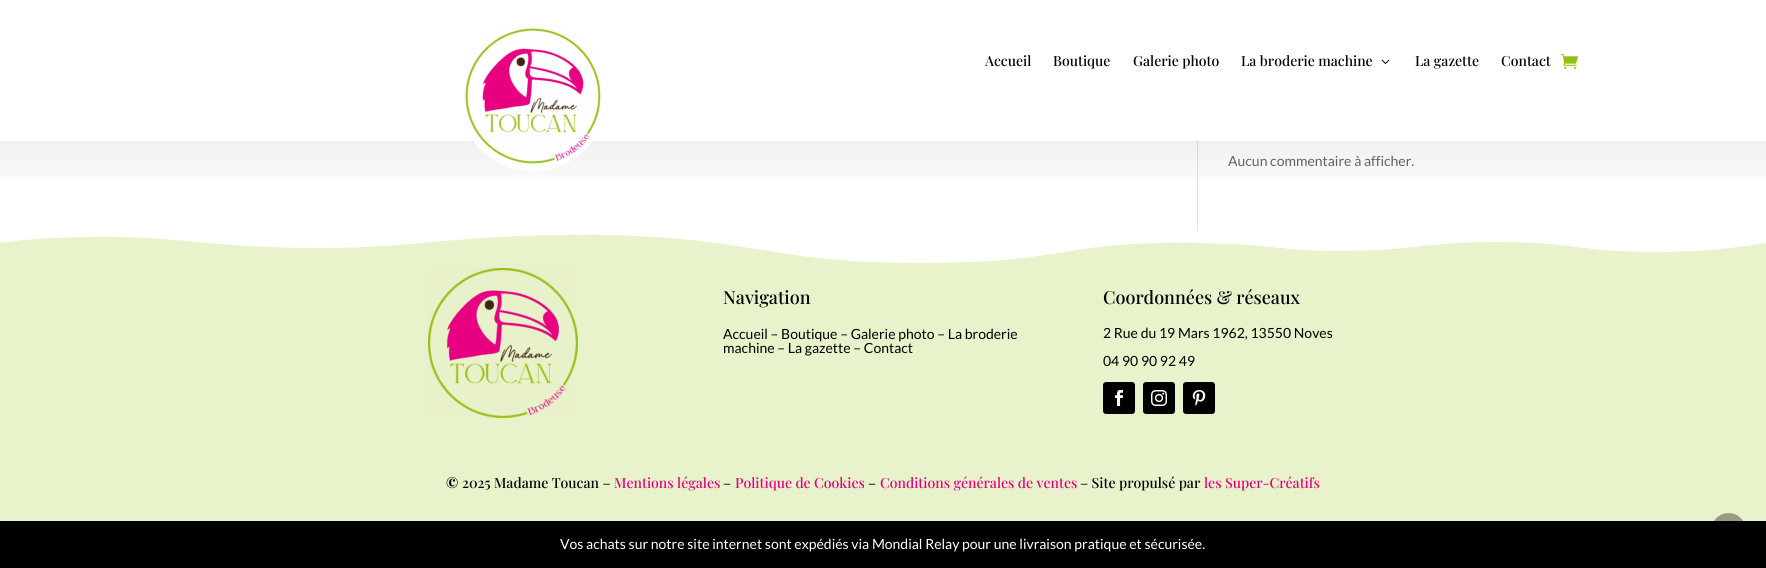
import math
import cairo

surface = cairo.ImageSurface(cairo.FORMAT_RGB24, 1766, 568)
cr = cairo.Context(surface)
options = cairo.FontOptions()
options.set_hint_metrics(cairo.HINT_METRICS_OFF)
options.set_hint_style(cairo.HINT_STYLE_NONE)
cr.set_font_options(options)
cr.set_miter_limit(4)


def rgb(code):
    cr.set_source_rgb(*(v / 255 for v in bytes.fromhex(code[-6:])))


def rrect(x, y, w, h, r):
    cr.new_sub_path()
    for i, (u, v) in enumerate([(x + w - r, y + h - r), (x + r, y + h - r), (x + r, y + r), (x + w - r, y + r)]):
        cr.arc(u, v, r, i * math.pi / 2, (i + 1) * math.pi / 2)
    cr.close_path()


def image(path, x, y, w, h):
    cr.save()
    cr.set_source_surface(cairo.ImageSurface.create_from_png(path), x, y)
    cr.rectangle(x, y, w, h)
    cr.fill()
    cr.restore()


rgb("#ffffff")
cr.paint()
image("img/2.png", 1381, 59, 9, 5)
image("img/3.png", 1561, 54, 17, 15)
rgb("#e2e2e2")
cr.rectangle(1197, 141, 1, 90)
cr.fill()
rgb("#e8f2cb")
cr.rectangle(0, 235, 1766, 286)
cr.fill()
rgb("#ffffff")
cr.new_path()
cr.move_to(1766, 243)
cr.curve_to(1739, 247, 1711, 252, 1656, 252)
cr.curve_to(1576, 252, 1577, 242, 1497, 242)
cr.curve_to(1423, 242, 1415, 251, 1338, 251)
cr.curve_to(1274, 251, 1275, 243, 1178, 243)
cr.curve_to(1055, 243, 1069, 263, 918, 263)
cr.curve_to(764, 263, 750, 235, 584, 235)
cr.curve_to(445, 235, 421, 248, 320, 248)
cr.curve_to(213, 248, 182, 237, 110, 237)
cr.curve_to(55, 237, 28, 239, 0, 243)
cr.line_to(0, 231)
cr.line_to(1766, 231)
cr.close_path()
cr.fill()
image("img/4.png", 428, 268, 150, 150)
rgb("#000000")
rrect(1103, 382, 32, 32, 3)
cr.fill()
image("img/5.png", 1115, 390, 8, 16)
rrect(1143, 382, 32, 32, 3)
cr.fill()
image("img/6.png", 1151, 390, 16, 16)
rrect(1183, 382, 32, 32, 3)
cr.fill()
image("img/7.png", 1192, 390, 14, 16)
cr.rectangle(0, 521, 1766, 47)
cr.fill()
image("img/8.png", 1714, 513, 29, 8)
cr.select_font_face("Playfair Display Medium")
cr.set_font_size(14)
for x, y, s in [
    (985, 66, "Accueil"),
    (1053, 66, "Boutique"),
    (1133, 66, "Galerie photo"),
    (1241, 66, "La broderie machine"),
    (1415, 66, "La gazette"),
    (1501, 66, "Contact"),
]:
    cr.move_to(x, y)
    cr.show_text(s)
cr.select_font_face("Lato")
rgb("#666666")
cr.move_to(1228, 166)
cr.show_text("Aucun commentaire à afficher.")
gradient = cairo.LinearGradient(883, 0, 883, 198)
gradient.add_color_stop_rgba(0, 1, 1, 1, 1)
gradient.add_color_stop_rgba(0.71, 1, 1, 1, 1)
gradient.add_color_stop_rgba(0.71, 0, 0, 0, 0.06)
gradient.add_color_stop_rgba(1, 0, 0, 0, 0)
cr.set_source(gradient)
cr.rectangle(0, 141, 1766, 36)
cr.fill()
image("img/1.png", 464, 27, 138, 144)
cr.select_font_face("Playfair Display Medium")
cr.set_font_size(18)
rgb("#000000")
cr.move_to(723, 304)
cr.show_text("Navigation")
cr.select_font_face("Lato")
cr.set_font_size(14)
cr.move_to(723, 339)
cr.show_text("Accueil – Boutique – Galerie photo – La broderie")
cr.move_to(723, 353)
cr.show_text("machine – La gazette – Contact")
cr.select_font_face("Playfair Display Medium")
cr.set_font_size(18)
cr.move_to(1103, 304)
cr.show_text("Coordonnées & réseaux")
cr.select_font_face("Lato")
cr.set_font_size(14)
cr.move_to(1103, 338)
cr.show_text("2 Rue du 19 Mars 1962, 13550 Noves")
cr.move_to(1103, 366)
cr.show_text("04 90 90 92 49")
cr.select_font_face("Playfair Display", cairo.FONT_SLANT_NORMAL, cairo.FONT_WEIGHT_BOLD)
cr.move_to(446, 488)
cr.show_text("©")
cr.select_font_face("Playfair Display Medium")
cr.move_to(462, 488)
cr.show_text("2025 Madame Toucan –")
rgb("#e60080")
cr.move_to(614, 488)
cr.show_text("Mentions légales")
rgb("#000000")
cr.move_to(723, 488)
cr.show_text("–")
rgb("#e60080")
cr.move_to(735, 488)
cr.show_text("Politique de Cookies")
rgb("#000000")
cr.move_to(868, 488)
cr.show_text("–")
rgb("#e60080")
cr.move_to(880, 488)
cr.show_text("Conditions générales de ventes")
rgb("#000000")
cr.move_to(1080, 488)
cr.show_text("– Site propulsé par")
rgb("#e60080")
cr.move_to(1204, 488)
cr.show_text("les Super-Créatifs")
cr.select_font_face("Lato")
rgb("#ffffff")
cr.move_to(560, 549)
cr.show_text("Vos achats sur notre site internet sont expédiés via Mondial Relay pour une livraison pratique et sécurisée.")
surface.write_to_png("page.png")
